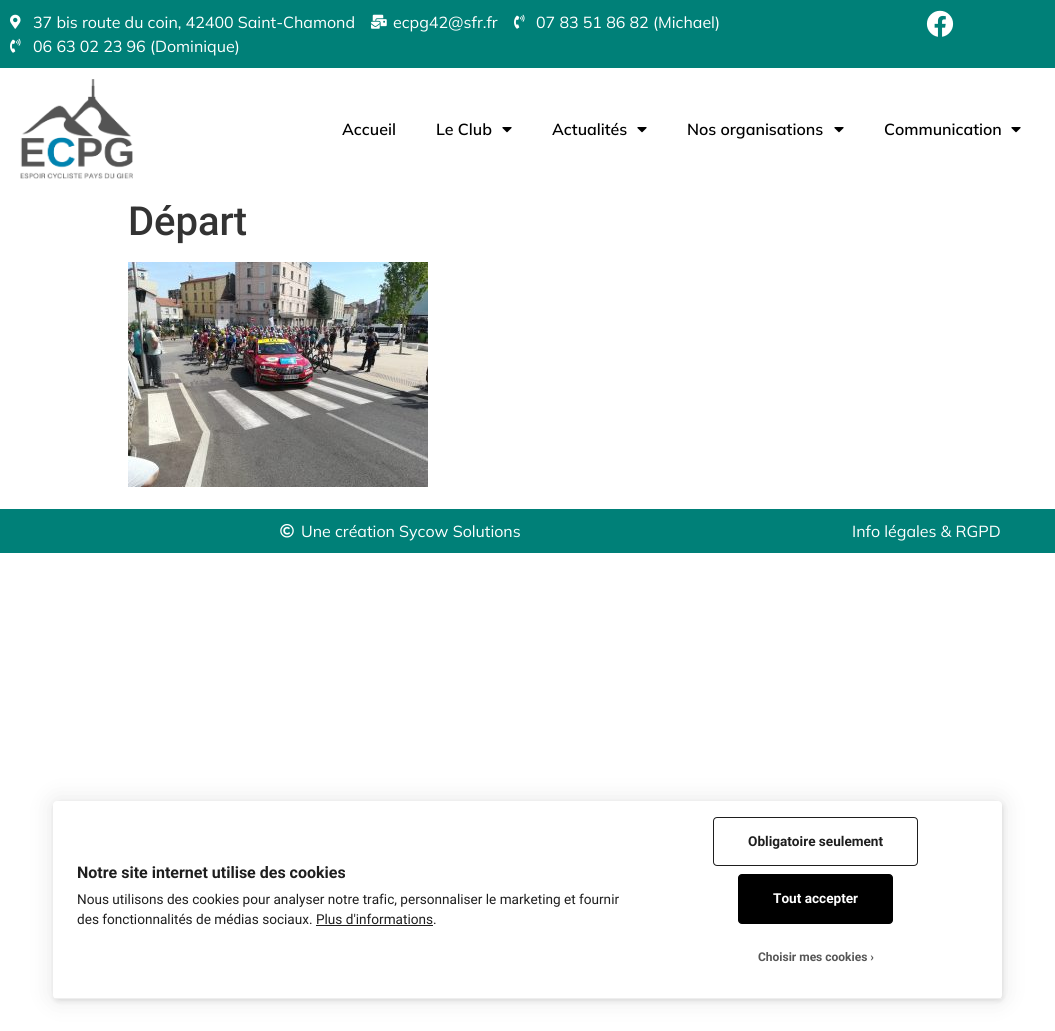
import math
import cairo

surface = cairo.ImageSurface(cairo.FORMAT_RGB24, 1055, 1031)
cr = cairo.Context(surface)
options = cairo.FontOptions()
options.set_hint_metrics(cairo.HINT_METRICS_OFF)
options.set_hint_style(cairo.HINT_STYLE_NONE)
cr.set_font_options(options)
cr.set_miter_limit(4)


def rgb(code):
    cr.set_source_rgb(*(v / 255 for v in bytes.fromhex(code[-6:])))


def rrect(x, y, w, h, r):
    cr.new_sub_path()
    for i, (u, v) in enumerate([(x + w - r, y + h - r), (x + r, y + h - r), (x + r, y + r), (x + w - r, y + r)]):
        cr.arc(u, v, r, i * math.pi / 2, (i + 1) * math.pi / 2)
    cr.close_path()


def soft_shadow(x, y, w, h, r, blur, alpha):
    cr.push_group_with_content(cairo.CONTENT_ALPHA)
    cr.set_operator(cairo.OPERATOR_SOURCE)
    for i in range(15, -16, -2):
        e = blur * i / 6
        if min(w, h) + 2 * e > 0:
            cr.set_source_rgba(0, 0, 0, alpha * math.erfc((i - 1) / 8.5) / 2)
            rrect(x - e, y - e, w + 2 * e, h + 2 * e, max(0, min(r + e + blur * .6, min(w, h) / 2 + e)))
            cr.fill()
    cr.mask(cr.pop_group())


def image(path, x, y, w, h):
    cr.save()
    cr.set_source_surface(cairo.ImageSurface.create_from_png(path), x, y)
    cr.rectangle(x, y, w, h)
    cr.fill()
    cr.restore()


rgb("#ffffff")
cr.paint()
rgb("#008078")
cr.rectangle(0, 0, 1055, 68)
cr.fill()
image("img/1.png", 10, 14, 11, 15)
image("img/2.png", 371, 14, 16, 15)
image("img/3.png", 514, 14, 11, 15)
image("img/3.png", 10, 38, 11, 15)
image("img/4.png", 926, 10, 28, 27)
image("img/5.png", 20, 79, 113, 100)
image("img/6.png", 502, 127, 10, 6)
image("img/6.png", 637, 127, 10, 6)
image("img/6.png", 834, 127, 10, 6)
image("img/6.png", 1011, 127, 10, 6)
image("img/7.png", 128, 262, 300, 225)
cr.rectangle(0, 509, 1055, 44)
cr.fill()
image("img/8.png", 280, 524, 14, 14)
rgb("#000000")
soft_shadow(54, 803, 949, 198, 4, 2.5, 0.1)
soft_shadow(53, 801, 949, 198, 4, 12.5, 0.1)
rgb("#ffffff")
rrect(53, 801, 949, 198, 4)
cr.fill()
rgb("#1e1e1e")
cr.rectangle(316, 925, 117, 1)
cr.fill()
rrect(713.5, 817.5, 204, 48, 3.5)
cr.set_line_width(1)
cr.stroke()
rgb("#000000")
rrect(738.5, 874.5, 154, 49, 3.5)
cr.fill_preserve()
cr.stroke()
rgb("#eeeeee")
cr.rectangle(53, 998, 949, 1)
cr.fill()
cr.select_font_face("Mulish")
cr.set_font_size(16)
rgb("#ffffff")
for x, y, s in [
    (33, 28, "37 bis route du coin, 42400 Saint-Chamond"),
    (393, 28, "ecpg42@sfr.fr"),
    (536, 28, "07 83 51 86 82 (Michael)"),
    (33, 52, "06 63 02 23 96 (Dominique)"),
]:
    cr.move_to(x, y)
    cr.show_text(s)
cr.select_font_face("Mulish SemiBold")
rgb("#000000")
for x, y, s in [
    (342, 135, "Accueil"),
    (436, 135, "Le Club"),
    (552, 135, "Actualités"),
    (687, 135, "Nos organisations"),
    (884, 135, "Communication"),
]:
    cr.move_to(x, y)
    cr.show_text(s)
cr.select_font_face("Roboto Medium")
cr.set_font_size(40)
rgb("#333333")
cr.move_to(128, 235)
cr.show_text("Départ")
cr.select_font_face("Mulish")
cr.set_font_size(16)
rgb("#ffffff")
cr.move_to(301, 537)
cr.show_text("Une création Sycow Solutions")
cr.move_to(852, 537)
cr.show_text("Info légales & RGPD")
cr.select_font_face("Roboto", cairo.FONT_SLANT_NORMAL, cairo.FONT_WEIGHT_BOLD)
rgb("#1e1e1e")
cr.move_to(77, 878)
cr.show_text("Notre site internet utilise des cookies")
cr.select_font_face("Roboto")
cr.set_font_size(13.6)
cr.move_to(77, 904)
cr.show_text("Nous utilisons des cookies pour analyser notre trafic, personnaliser le marketing et fournir")
cr.move_to(77, 924)
cr.show_text("des fonctionnalités de médias sociaux. Plus d'informations.")
cr.select_font_face("Roboto", cairo.FONT_SLANT_NORMAL, cairo.FONT_WEIGHT_BOLD)
cr.move_to(748, 846)
cr.show_text("Obligatoire seulement")
rgb("#ffffff")
cr.move_to(773, 903)
cr.show_text("Tout accepter")
cr.set_font_size(12)
rgb("#565656")
cr.move_to(758, 961)
cr.show_text("Choisir mes cookies ›")
surface.write_to_png("page.png")
